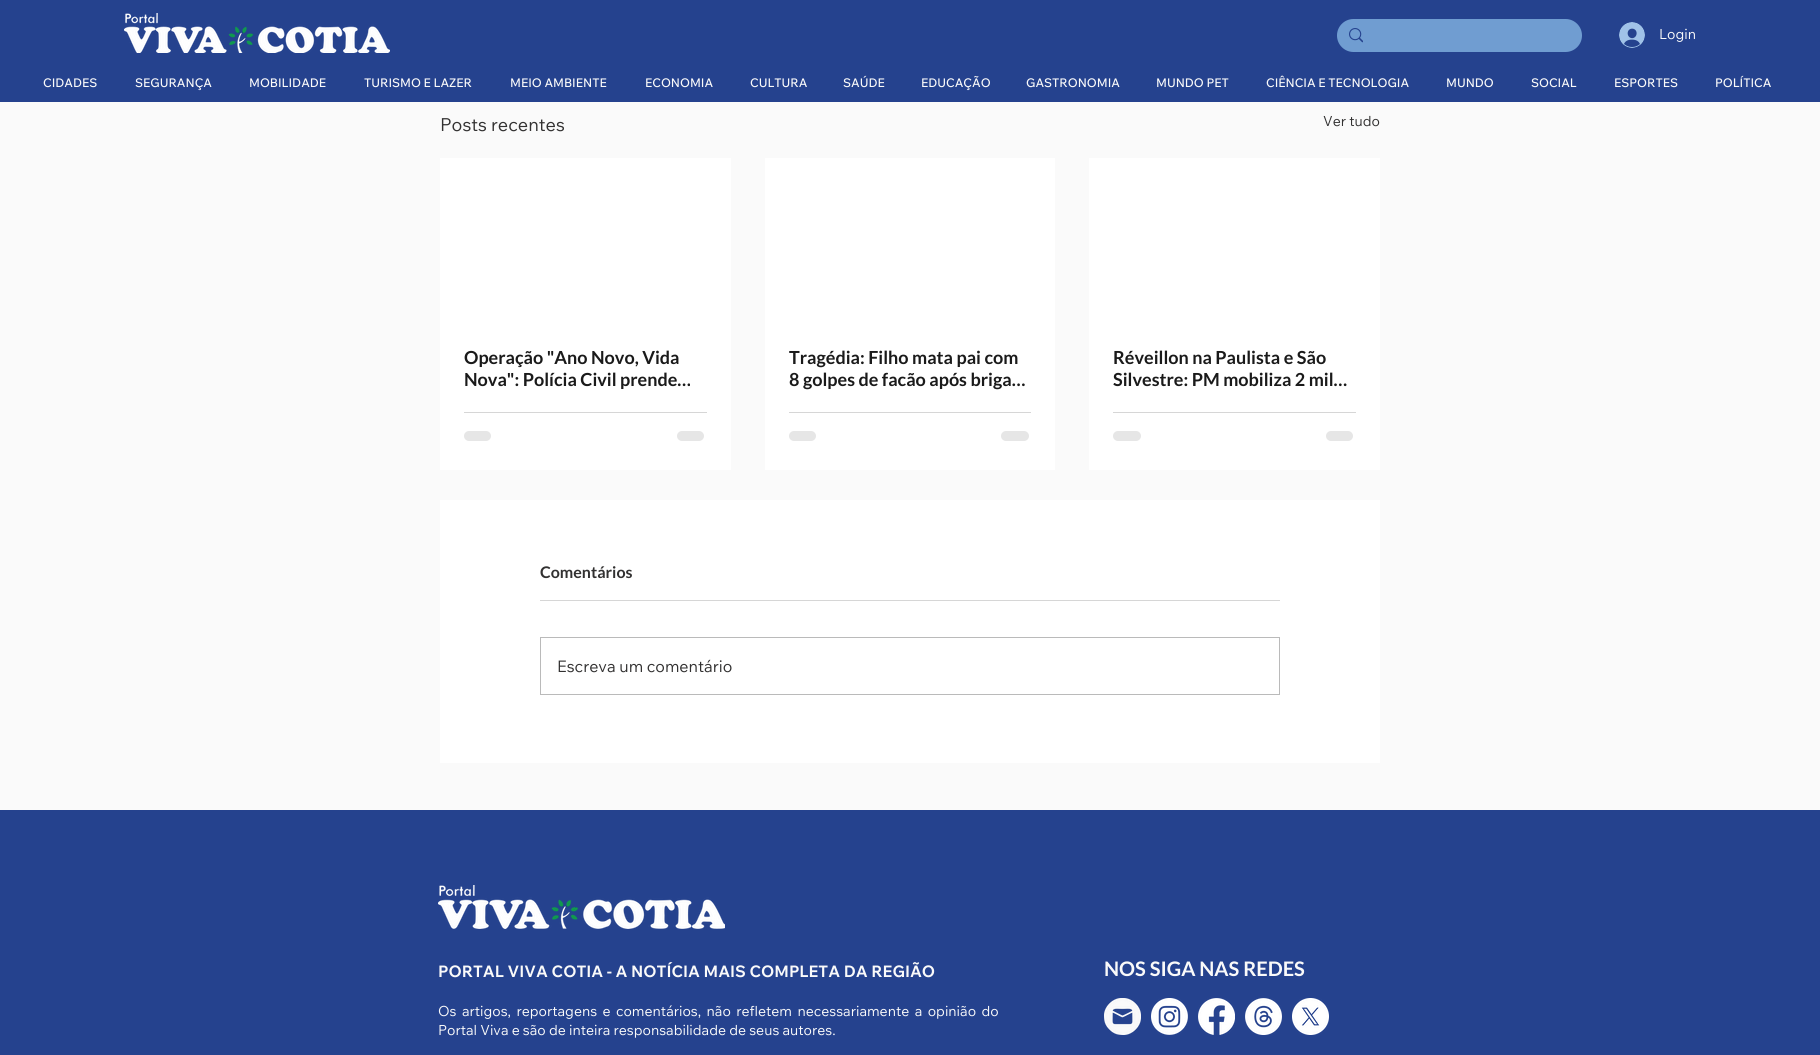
import math
import cairo

surface = cairo.ImageSurface(cairo.FORMAT_RGB24, 1820, 1055)
cr = cairo.Context(surface)
options = cairo.FontOptions()
options.set_hint_metrics(cairo.HINT_METRICS_OFF)
options.set_hint_style(cairo.HINT_STYLE_NONE)
cr.set_font_options(options)
cr.set_miter_limit(4)


def rgb(code):
    cr.set_source_rgb(*(v / 255 for v in bytes.fromhex(code[-6:])))


def tracked(x, y, s, letter, word):
    cr.move_to(x, y)
    for ch in s:
        cr.show_text(ch)
        cr.rel_move_to(letter + word * (ch == ' '), 0)


def rrect(x, y, w, h, r):
    cr.new_sub_path()
    for i, (u, v) in enumerate([(x + w - r, y + h - r), (x + r, y + h - r), (x + r, y + r), (x + w - r, y + r)]):
        cr.arc(u, v, r, i * math.pi / 2, (i + 1) * math.pi / 2)
    cr.close_path()


def image(path, x, y, w, h):
    cr.save()
    cr.set_source_surface(cairo.ImageSurface.create_from_png(path), x, y)
    cr.rectangle(x, y, w, h)
    cr.fill()
    cr.restore()


rgb("#25428e")
cr.paint()
image("img/1.png", 124, 13, 266, 40)
rgb("#709dd1")
rrect(1337, 19, 245, 33, 16.5)
cr.fill()
image("img/2.png", 1349, 28, 14, 15)
image("img/3.png", 1619, 22, 26, 26)
for x, y, w, h, color in [
    (0, 102, 1820, 708, "#fafafa"),
    (440, 158, 291, 312, "#ffffff"),
    (464, 412, 243, 1, "#d6d6d6"),
]:
    rgb(color)
    cr.rectangle(x, y, w, h)
    cr.fill()
rgb("#e6e6e6")
rrect(464, 431, 27, 10, 5)
cr.fill()
rrect(677, 431, 27, 10, 5)
cr.fill()
rgb("#ffffff")
cr.rectangle(765, 158, 290, 312)
cr.fill()
rgb("#d6d6d6")
cr.rectangle(789, 412, 242, 1)
cr.fill()
rgb("#e6e6e6")
rrect(789, 431, 27, 10, 5)
cr.fill()
rrect(1001, 431, 28, 10, 5)
cr.fill()
rgb("#ffffff")
cr.rectangle(1089, 158, 291, 312)
cr.fill()
rgb("#d6d6d6")
cr.rectangle(1113, 412, 243, 1)
cr.fill()
rgb("#e6e6e6")
rrect(1113, 431, 28, 10, 5)
cr.fill()
rrect(1326, 431, 27, 10, 5)
cr.fill()
rgb("#ffffff")
cr.rectangle(440, 500, 940, 263)
cr.fill()
rgb("#d6d6d6")
cr.rectangle(540, 600, 740, 1)
cr.fill()
cr.rectangle(540.5, 637.5, 739, 57)
rgb("#bababa")
cr.set_line_width(1)
cr.stroke()
image("img/4.png", 438, 885, 287, 44)
image("img/5.png", 1104, 998, 37, 37)
image("img/6.png", 1151, 998, 37, 37)
image("img/7.png", 1198, 998, 37, 37)
image("img/8.png", 1245, 998, 37, 37)
image("img/9.png", 1292, 998, 37, 37)
cr.select_font_face("Wix Madefor Text")
cr.set_font_size(14)
rgb("#fafafa")
cr.move_to(1659, 39)
cr.show_text("Login")
cr.select_font_face("Wix Madefor Text Medium")
cr.set_font_size(12)
for x, y, s in [
    (43, 87, "CIDADES"),
    (135, 87, "SEGURANÇA"),
    (249, 87, "MOBILIDADE"),
    (364, 87, "TURISMO E LAZER"),
    (510, 87, "MEIO AMBIENTE"),
    (645, 87, "ECONOMIA"),
    (750, 87, "CULTURA"),
    (843, 87, "SAÚDE"),
    (921, 87, "EDUCAÇÃO"),
    (1026, 87, "GASTRONOMIA"),
    (1156, 87, "MUNDO PET"),
    (1266, 87, "CIÊNCIA E TECNOLOGIA"),
    (1446, 87, "MUNDO"),
    (1531, 87, "SOCIAL"),
    (1614, 87, "ESPORTES"),
    (1715, 87, "POLÍTICA"),
]:
    cr.move_to(x, y)
    cr.show_text(s)
cr.select_font_face("Wix Madefor Text")
cr.set_font_size(18)
rgb("#323131")
cr.move_to(440, 131)
cr.show_text("Posts recentes")
cr.set_font_size(14)
cr.move_to(1323, 126)
cr.show_text("Ver tudo")
cr.select_font_face("Lato", cairo.FONT_SLANT_NORMAL, cairo.FONT_WEIGHT_BOLD)
cr.set_font_size(18)
rgb("#1a1a1a")
for x, y, s in [
    (464, 364, "Operação \"Ano Novo, Vida"),
    (464, 386, "Nova\": Polícia Civil prende…"),
    (789, 364, "Tragédia: Filho mata pai com"),
    (789, 386, "8 golpes de facão após briga…"),
    (1113, 364, "Réveillon na Paulista e São"),
    (1113, 386, "Silvestre: PM mobiliza 2 mil…"),
]:
    cr.move_to(x, y)
    cr.show_text(s)
cr.set_font_size(16)
rgb("#323131")
cr.move_to(540, 578)
cr.show_text("Comentários")
cr.select_font_face("Wix Madefor Text")
cr.move_to(557, 672)
cr.show_text("Escreva um comentário")
cr.select_font_face("Wix Madefor Text", cairo.FONT_SLANT_NORMAL, cairo.FONT_WEIGHT_BOLD)
rgb("#fafafa")
cr.move_to(438, 977)
cr.show_text("PORTAL VIVA COTIA - A NOTÍCIA MAIS COMPLETA DA REGIÃO")
cr.select_font_face("Wix Madefor Text")
cr.set_font_size(14)
tracked(438, 1016, "Os artigos, reportagens e comentários, não refletem necessariamente a opinião do", 0, 2.25)
cr.move_to(438, 1035)
cr.show_text("Portal Viva e são de inteira responsabilidade de seus autores.")
cr.select_font_face("Lato", cairo.FONT_SLANT_NORMAL, cairo.FONT_WEIGHT_BOLD)
cr.set_font_size(20)
cr.move_to(1104, 976)
cr.show_text("NOS SIGA NAS REDES")
surface.write_to_png("page.png")
